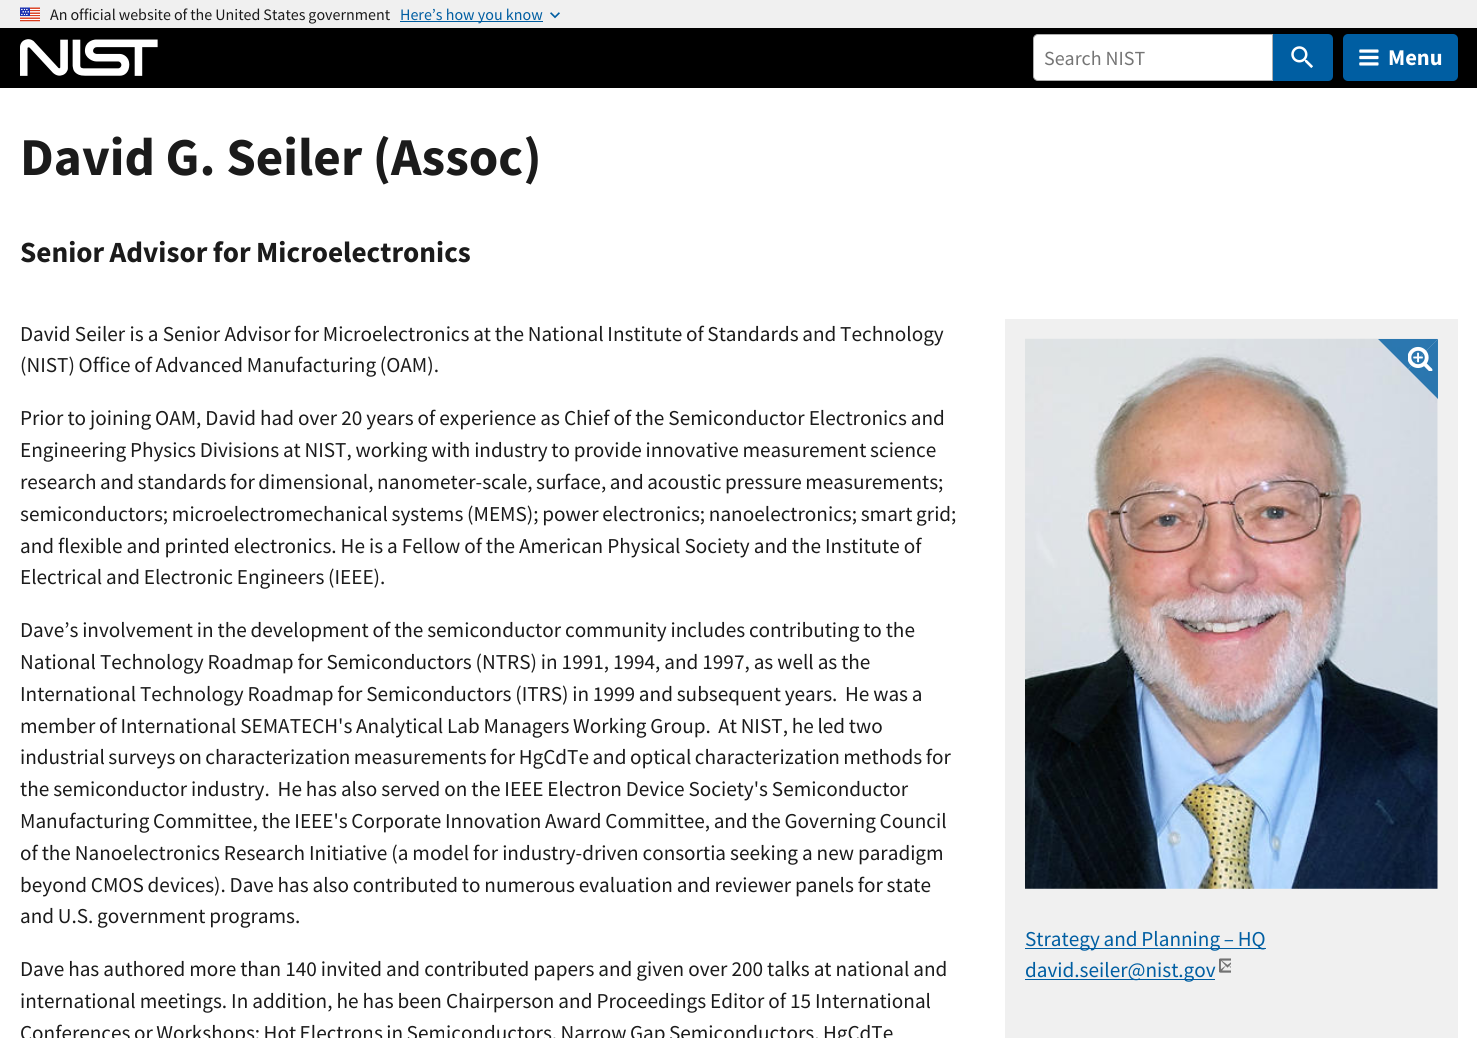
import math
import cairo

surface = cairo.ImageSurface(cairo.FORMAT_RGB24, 1477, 1038)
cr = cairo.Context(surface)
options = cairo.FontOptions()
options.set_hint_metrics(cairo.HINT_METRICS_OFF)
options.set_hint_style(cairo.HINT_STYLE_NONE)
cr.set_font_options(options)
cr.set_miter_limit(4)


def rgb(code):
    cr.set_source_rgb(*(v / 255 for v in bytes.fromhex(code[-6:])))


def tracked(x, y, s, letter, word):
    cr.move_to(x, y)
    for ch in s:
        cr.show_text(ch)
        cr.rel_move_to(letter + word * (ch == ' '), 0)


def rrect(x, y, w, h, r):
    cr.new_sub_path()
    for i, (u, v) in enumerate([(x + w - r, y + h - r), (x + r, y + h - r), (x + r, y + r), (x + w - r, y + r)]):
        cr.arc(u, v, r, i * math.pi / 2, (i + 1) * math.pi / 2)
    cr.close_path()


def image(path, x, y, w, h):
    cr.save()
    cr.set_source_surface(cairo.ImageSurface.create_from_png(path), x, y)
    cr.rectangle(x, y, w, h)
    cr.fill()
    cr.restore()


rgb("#ffffff")
cr.paint()
rgb("#f0f0f0")
cr.rectangle(0, 0, 1477, 28)
cr.fill()
image("img/1.png", 20, 7, 20, 15)
rgb("#005ea2")
cr.rectangle(400, 21, 143, 1)
cr.fill()
image("img/2.png", 550, 12, 10, 7)
rgb("#000000")
cr.rectangle(0, 28, 1477, 60)
cr.fill()
image("img/3.png", 20, 39, 138, 37)
rgb("#ffffff")
cr.new_path()
cr.move_to(1038, 34.5)
cr.line_to(1272.5, 34.5)
cr.line_to(1272.5, 80.5)
cr.line_to(1038, 80.5)
cr.curve_to(1035.5, 80.5, 1033.5, 78.5, 1033.5, 76)
cr.line_to(1033.5, 39)
cr.curve_to(1033.5, 36.5, 1035.5, 34.5, 1038, 34.5)
cr.close_path()
cr.fill_preserve()
rgb("#adadad")
cr.set_line_width(1)
cr.stroke()
rgb("#005ea2")
cr.new_path()
cr.move_to(1273, 34)
cr.line_to(1328, 34)
cr.curve_to(1331, 34, 1333, 36, 1333, 39)
cr.line_to(1333, 76)
cr.curve_to(1333, 79, 1331, 81, 1328, 81)
cr.line_to(1273, 81)
cr.close_path()
cr.fill()
image("img/4.png", 1291, 46, 22, 22)
rrect(1343, 34, 115, 47, 5)
cr.fill()
image("img/5.png", 1359, 49, 20, 17)
rgb("#f0f0f0")
cr.rectangle(1005, 319, 453, 719)
cr.fill()
image("img/6.png", 1025, 338, 413, 551)
cr.set_source_rgba(0, 0.369, 0.635, 0.8)
cr.new_path()
cr.move_to(1378, 339)
cr.line_to(1438, 339)
cr.line_to(1408, 369)
cr.close_path()
cr.fill()
cr.new_path()
cr.move_to(1438, 339)
cr.line_to(1438, 399)
cr.line_to(1408, 369)
cr.close_path()
cr.fill()
image("img/7.png", 1408, 346, 25, 25)
rgb("#005ea2")
cr.rectangle(1025, 948, 241, 1)
cr.fill()
cr.rectangle(1025, 979, 190, 1)
cr.fill()
image("img/8.png", 1219, 958, 12, 15)
cr.select_font_face("Source Sans Pro")
cr.set_font_size(16)
rgb("#1b1b1b")
tracked(50, 20, "An official website of the United States government", 0, -0.25)
rgb("#005ea2")
cr.move_to(400, 20)
cr.show_text("Here’s how you know")
cr.set_font_size(20)
rgb("#757575")
cr.move_to(1044, 65)
cr.show_text("Search NIST")
cr.select_font_face("Source Sans Pro", cairo.FONT_SLANT_NORMAL, cairo.FONT_WEIGHT_BOLD)
cr.set_font_size(22.5)
rgb("#ffffff")
cr.move_to(1388, 65)
cr.show_text("Menu")
cr.set_font_size(53.25)
rgb("#1b1b1b")
cr.move_to(20, 175)
cr.show_text("David G. Seiler (Assoc)")
cr.set_font_size(29.25)
tracked(20, 262, "Senior Advisor for Microelectronics", 0, -0.4)
cr.select_font_face("Source Sans Pro")
cr.set_font_size(21.2)
cr.move_to(20, 341)
cr.show_text("David Seiler is a Senior Advisor")
tracked(294, 341, "for Microelectronics at the National Institute of Standards and Technology", 0, -0.5)
tracked(20, 372, "(NIST) Office of Advanced Manufacturing (OAM).", 0, -0.5)
tracked(20, 425, "Prior to joining OAM, David had over 20 years of experience as Chief of the Semiconductor Electronics and", 0, -0.25)
tracked(20, 457, "Engineering Physics Divisions at NIST, working with industry to provide innovative measurement science", 0, -0.5)
tracked(20, 489, "research and standards for dimensional, nanometer-scale, surface, and acoustic pressure measurements;", 0, -0.75)
tracked(20, 521, "semiconductors; microelectromechanical systems (MEMS); power electronics; nanoelectronics; smart grid;", 0, -0.5)
tracked(20, 553, "and flexible and printed electronics. He is a Fellow of the American Physical Society and the Institute of", 0, -0.25)
tracked(20, 584, "Electrical and Electronic Engineers (IEEE).", 0, -0.5)
tracked(20, 637, "Dave’s involvement in the development of the semiconductor community includes contributing to the", 0, -0.4)
tracked(20, 669, "National Technology Roadmap for Semiconductors (NTRS) in 1991, 1994, and 1997, as well as the", 0, -0.3)
tracked(20, 701, "International Technology Roadmap for Semiconductors (ITRS) in 1999 and subsequent years.  He was a", 0, -0.4)
tracked(20, 733, "member of International SEMATECH's Analytical Lab Managers Working Group.  At NIST, he led two", 0, -0.5)
tracked(20, 764, "industrial surveys on characterization measurements for HgCdTe and optical characterization methods for", 0, -0.75)
tracked(20, 796, "the semiconductor industry.  He has also served on the IEEE Electron Device Society's Semiconductor", 0, -0.3)
tracked(20, 828, "Manufacturing Committee, the IEEE's Corporate Innovation Award Committee, and the Governing Council", 0, -0.5)
tracked(20, 860, "of the Nanoelectronics Research Initiative (a model for industry-driven consortia seeking a new paradigm", 0, -0.25)
tracked(20, 892, "beyond CMOS devices). Dave has also contributed to numerous evaluation and reviewer panels for state", 0, -0.4)
tracked(20, 923, "and U.S. government programs.", 0, -0.5)
tracked(20, 976, "Dave has authored more than 140 invited and contributed papers and given over 200 talks at national and", 0, -0.25)
tracked(20, 1008, "international meetings. In addition, he has been Chairperson and Proceedings Editor of 15 International", 0, -0.25)
tracked(20, 1040, "Conferences or Workshops: Hot Electrons in Semiconductors, Narrow Gap Semiconductors, HgCdTe", 0, -0.75)
rgb("#005ea2")
tracked(1025, 946, "Strategy and Planning – HQ", 0, -0.5)
cr.move_to(1025, 977)
cr.show_text("david.seiler@nist.gov")
surface.write_to_png("page.png")
